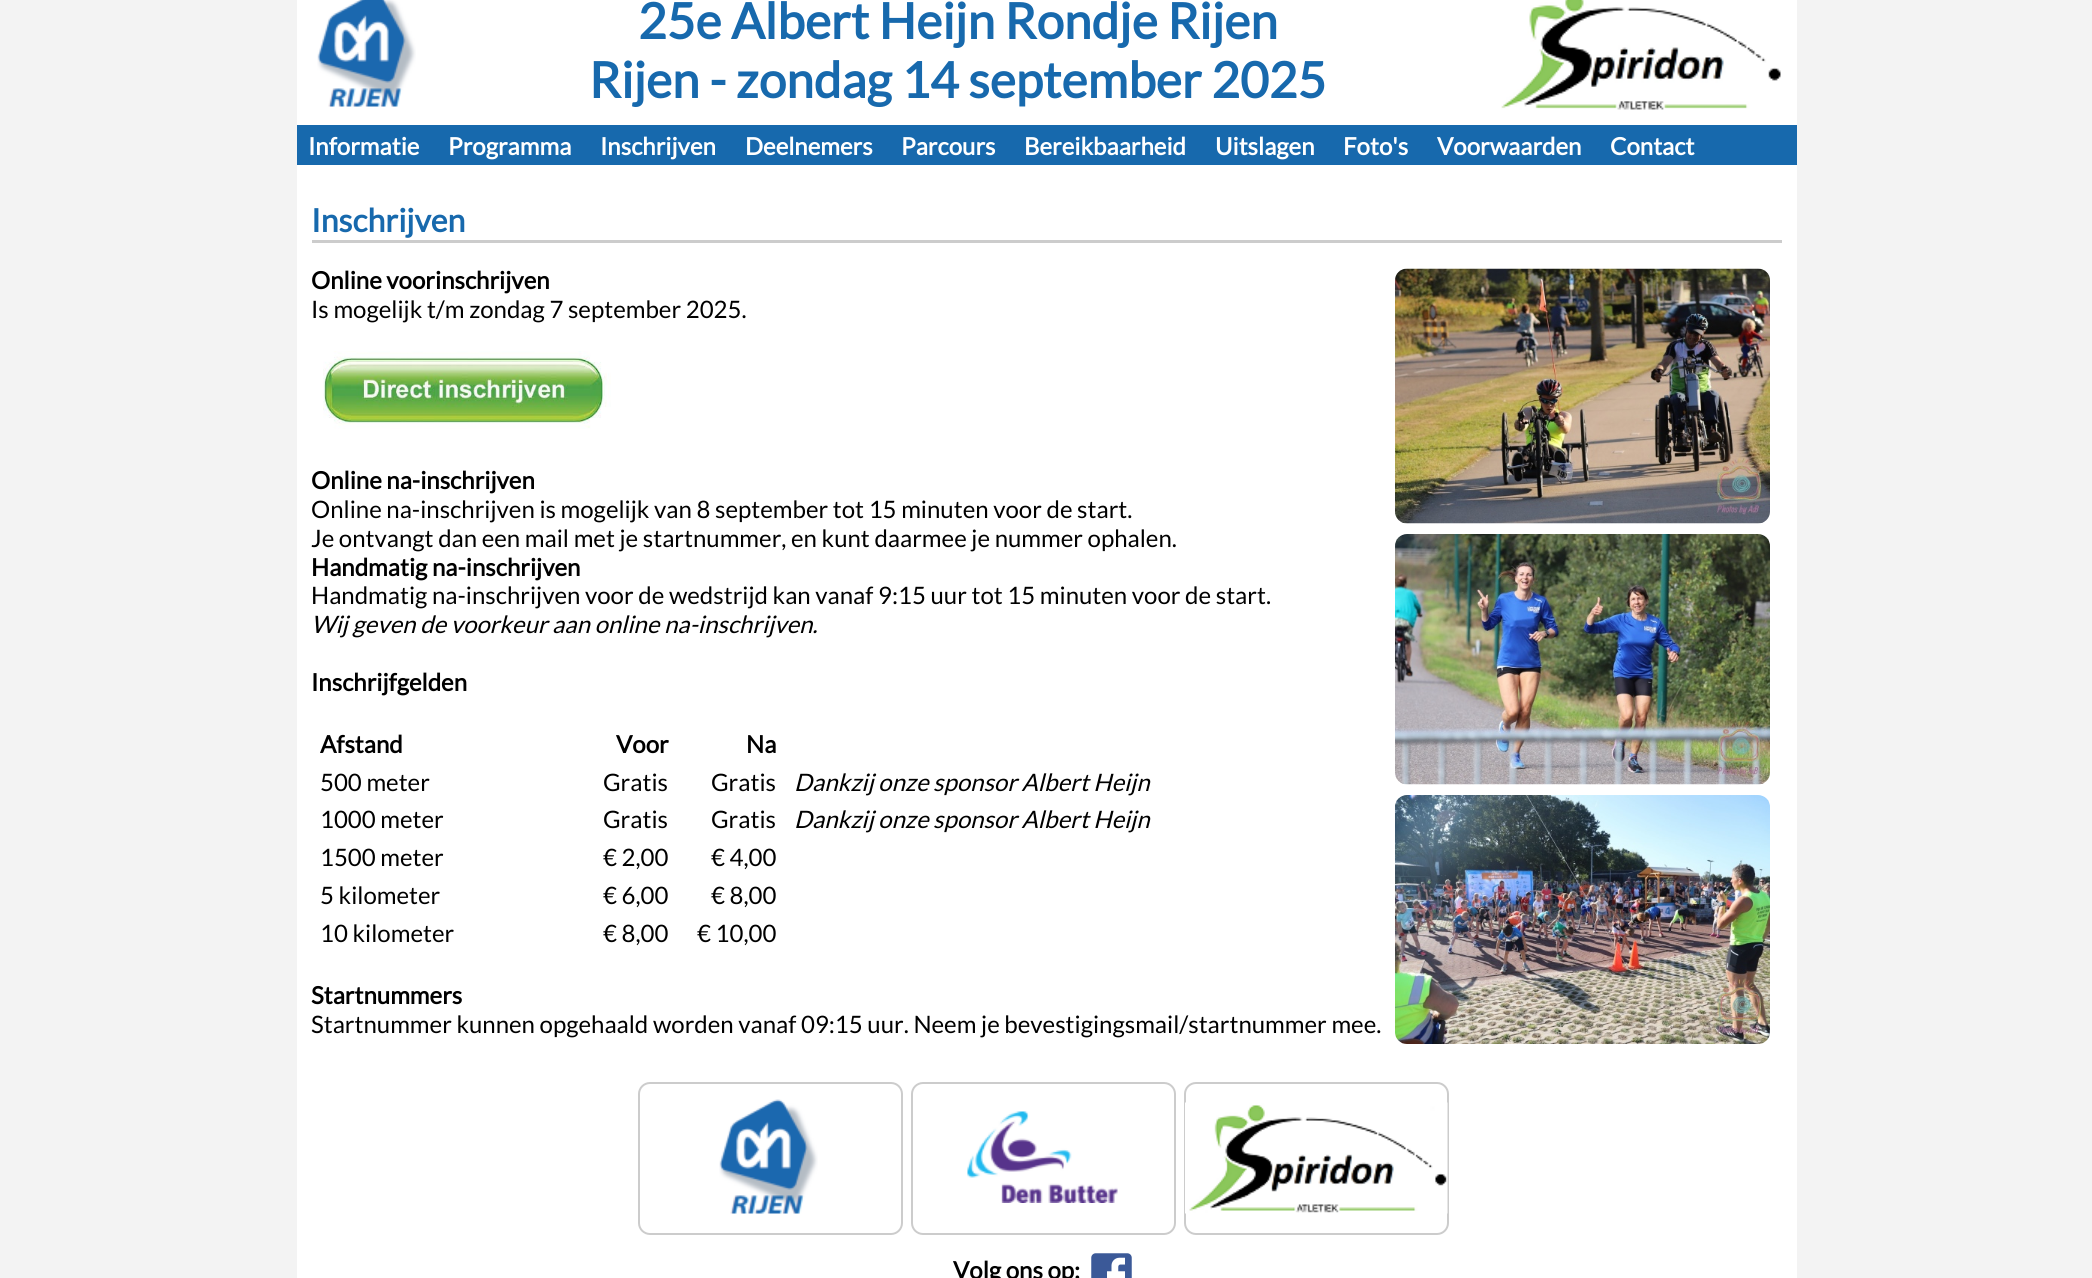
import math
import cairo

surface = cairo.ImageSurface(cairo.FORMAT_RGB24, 2092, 1278)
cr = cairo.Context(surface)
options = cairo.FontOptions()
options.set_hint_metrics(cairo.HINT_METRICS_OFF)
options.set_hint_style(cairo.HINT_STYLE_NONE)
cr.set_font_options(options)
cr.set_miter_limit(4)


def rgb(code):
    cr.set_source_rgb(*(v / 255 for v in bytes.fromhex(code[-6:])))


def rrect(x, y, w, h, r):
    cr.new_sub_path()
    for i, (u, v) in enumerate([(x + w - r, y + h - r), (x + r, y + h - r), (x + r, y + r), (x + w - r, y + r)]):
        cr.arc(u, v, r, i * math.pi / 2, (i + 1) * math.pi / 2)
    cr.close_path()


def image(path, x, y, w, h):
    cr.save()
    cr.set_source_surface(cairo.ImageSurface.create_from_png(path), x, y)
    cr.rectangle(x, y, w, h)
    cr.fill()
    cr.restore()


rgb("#f3f3f3")
cr.paint()
rgb("#ffffff")
cr.rectangle(297, 0, 1500, 1278)
cr.fill()
image("img/1.png", 317, 0, 99, 107)
image("img/2.png", 1501, 0, 280, 110)
rgb("#1769ad")
cr.rectangle(297, 125, 1500, 40)
cr.fill()
rgb("#cccccc")
cr.rectangle(312, 240, 1470, 3)
cr.fill()
image("img/3.png", 1395, 268, 375, 256)
image("img/4.png", 1395, 534, 375, 251)
image("img/5.png", 1395, 795, 375, 249)
image("img/6.png", 323, 351, 288, 78)
rrect(639, 1083, 263, 151, 11)
cr.stroke()
image("img/7.png", 719, 1099, 99, 115)
rrect(912, 1083, 263, 151, 11)
cr.stroke()
image("img/8.png", 967, 1111, 151, 92)
rrect(1185, 1083, 263, 151, 11)
cr.stroke()
image("img/9.png", 1185, 1102, 263, 112)
image("img/10.png", 1091, 1253, 41, 25)
cr.select_font_face("Lato", cairo.FONT_SLANT_NORMAL, cairo.FONT_WEIGHT_BOLD)
cr.set_font_size(49.5)
rgb("#1769ad")
cr.move_to(638, 39)
cr.show_text("25e Albert Heijn Rondje Rijen")
cr.move_to(589, 98)
cr.show_text("Rijen - zondag 14 september 2025")
cr.set_font_size(24)
rgb("#ffffff")
for x, y, s in [
    (308, 155, "Informatie"),
    (448, 155, "Programma"),
    (600, 155, "Inschrijven"),
    (745, 155, "Deelnemers"),
    (901, 155, "Parcours"),
    (1024, 155, "Bereikbaarheid"),
    (1215, 155, "Uitslagen"),
    (1343, 155, "Foto's"),
    (1437, 155, "Voorwaarden"),
    (1610, 155, "Contact"),
]:
    cr.move_to(x, y)
    cr.show_text(s)
cr.set_font_size(32)
rgb("#1769ad")
cr.move_to(311, 232)
cr.show_text("Inschrijven")
cr.set_font_size(24)
rgb("#000000")
cr.move_to(311, 289)
cr.show_text("Online voorinschrijven")
cr.select_font_face("Lato")
cr.move_to(311, 318)
cr.show_text("Is mogelijk t/m zondag 7 september 2025.")
cr.select_font_face("Lato", cairo.FONT_SLANT_NORMAL, cairo.FONT_WEIGHT_BOLD)
cr.move_to(311, 489)
cr.show_text("Online na-inschrijven")
cr.select_font_face("Lato")
cr.move_to(311, 518)
cr.show_text("Online na-inschrijven is mogelijk van 8 september tot 15 minuten voor de start.")
cr.move_to(311, 547)
cr.show_text("Je ontvangt dan een mail met je startnummer, en kunt daarmee je nummer ophalen.")
cr.select_font_face("Lato", cairo.FONT_SLANT_NORMAL, cairo.FONT_WEIGHT_BOLD)
cr.move_to(311, 576)
cr.show_text("Handmatig na-inschrijven")
cr.select_font_face("Lato")
cr.move_to(311, 604)
cr.show_text("Handmatig na-inschrijven voor de wedstrijd kan vanaf 9:15 uur tot 15 minuten voor de start.")
cr.select_font_face("Lato", cairo.FONT_SLANT_ITALIC)
cr.move_to(311, 633)
cr.show_text("Wij geven de voorkeur aan online na-inschrijven.")
cr.select_font_face("Lato", cairo.FONT_SLANT_NORMAL, cairo.FONT_WEIGHT_BOLD)
for x, y, s in [
    (311, 691, "Inschrijfgelden"),
    (320, 753, "Afstand"),
    (616, 753, "Voor"),
    (746, 753, "Na"),
]:
    cr.move_to(x, y)
    cr.show_text(s)
cr.select_font_face("Lato")
for x, y, s in [
    (320, 791, "500 meter"),
    (603, 791, "Gratis"),
    (711, 791, "Gratis"),
]:
    cr.move_to(x, y)
    cr.show_text(s)
cr.select_font_face("Lato", cairo.FONT_SLANT_ITALIC)
cr.move_to(794, 791)
cr.show_text("Dankzij onze sponsor Albert Heijn")
cr.select_font_face("Lato")
for x, y, s in [
    (320, 828, "1000 meter"),
    (603, 828, "Gratis"),
    (711, 828, "Gratis"),
]:
    cr.move_to(x, y)
    cr.show_text(s)
cr.select_font_face("Lato", cairo.FONT_SLANT_ITALIC)
cr.move_to(794, 828)
cr.show_text("Dankzij onze sponsor Albert Heijn")
cr.select_font_face("Lato")
for x, y, s in [
    (320, 866, "1500 meter"),
    (603, 866, "€ 2,00"),
    (711, 866, "€ 4,00"),
    (320, 904, "5 kilometer"),
    (603, 904, "€ 6,00"),
    (711, 904, "€ 8,00"),
    (320, 942, "10 kilometer"),
    (603, 942, "€ 8,00"),
    (697, 942, "€ 10,00"),
]:
    cr.move_to(x, y)
    cr.show_text(s)
cr.select_font_face("Lato", cairo.FONT_SLANT_NORMAL, cairo.FONT_WEIGHT_BOLD)
cr.move_to(311, 1004)
cr.show_text("Startnummers")
cr.select_font_face("Lato")
cr.move_to(311, 1033)
cr.show_text("Startnummer kunnen opgehaald worden vanaf 09:15 uur. Neem je bevestigingsmail/startnummer mee.")
cr.select_font_face("Lato", cairo.FONT_SLANT_NORMAL, cairo.FONT_WEIGHT_BOLD)
cr.move_to(953, 1279)
cr.show_text("Volg ons op:")
surface.write_to_png("page.png")
